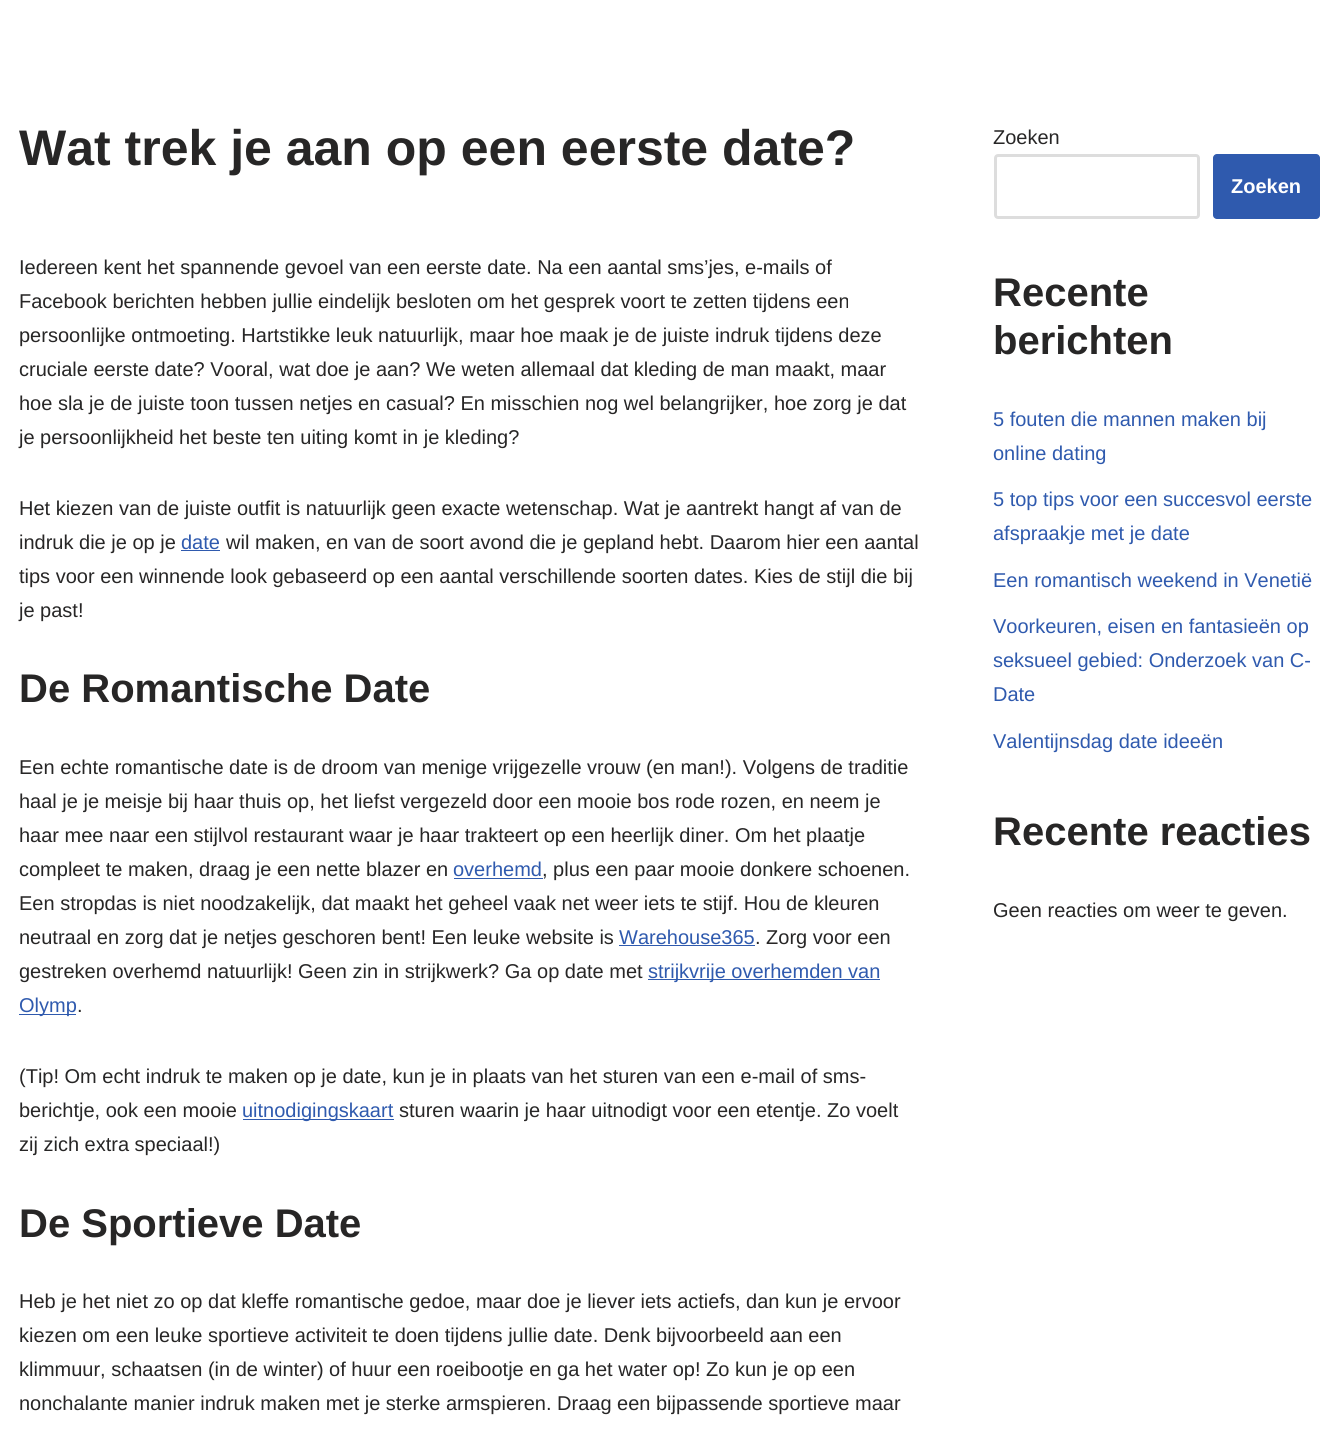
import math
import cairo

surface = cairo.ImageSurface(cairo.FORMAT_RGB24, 1338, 1435)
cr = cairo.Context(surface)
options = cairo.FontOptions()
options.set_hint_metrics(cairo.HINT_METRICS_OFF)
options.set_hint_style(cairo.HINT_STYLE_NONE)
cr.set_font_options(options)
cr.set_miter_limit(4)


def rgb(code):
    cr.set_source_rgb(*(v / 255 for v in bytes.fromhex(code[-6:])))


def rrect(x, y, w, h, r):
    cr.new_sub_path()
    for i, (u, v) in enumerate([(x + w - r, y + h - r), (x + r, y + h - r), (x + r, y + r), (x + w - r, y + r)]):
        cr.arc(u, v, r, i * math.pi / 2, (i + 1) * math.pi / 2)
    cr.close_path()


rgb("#ffffff")
cr.paint()
for x, y, w, h, color in [
    (181, 550, 39, 1, "#2f5aae"),
    (454, 878, 89, 1, "#2f5aae"),
    (619, 945, 136, 1, "#2f5aae"),
    (648, 979, 232, 1, "#2f5aae"),
    (19, 1014, 57, 1, "#2f5aae"),
    (243, 1119, 151, 1, "#2f5aae"),
]:
    rgb(color)
    cr.rectangle(x, y, w, h)
    cr.fill()
rrect(995.5, 155.5, 203, 62, 2.5)
rgb("#dddddd")
cr.set_line_width(3)
cr.stroke()
rgb("#2f5aae")
rrect(1213, 154, 107, 65, 4)
cr.fill()
cr.select_font_face("Liberation Sans", cairo.FONT_SLANT_NORMAL, cairo.FONT_WEIGHT_BOLD)
cr.set_font_size(50)
rgb("#272626")
cr.move_to(19, 165)
cr.show_text("Wat trek je aan op een eerste date?")
cr.select_font_face("Liberation Sans")
cr.set_font_size(20)
for x, y, s in [
    (19, 274, "Iedereen kent het spannende gevoel van een eerste date. Na een aantal sms’jes, e-mails of"),
    (19, 308, "Facebook berichten hebben jullie eindelijk besloten om het gesprek voort te zetten tijdens een"),
    (19, 342, "persoonlijke ontmoeting. Hartstikke leuk natuurlijk, maar hoe maak je de juiste indruk tijdens deze"),
    (19, 376, "cruciale eerste date? Vooral, wat doe je aan? We weten allemaal dat kleding de man maakt, maar"),
    (19, 410, "hoe sla je de juiste toon tussen netjes en casual? En misschien nog wel belangrijker, hoe zorg je dat"),
    (19, 444, "je persoonlijkheid het beste ten uiting komt in je kleding?"),
    (19, 515, "Het kiezen van de juiste outfit is natuurlijk geen exacte wetenschap. Wat je aantrekt hangt af van de"),
    (19, 549, "indruk die je op je"),
]:
    cr.move_to(x, y)
    cr.show_text(s)
rgb("#2f5aae")
cr.move_to(181, 549)
cr.show_text("date")
rgb("#272626")
for x, y, s in [
    (226, 549, "wil maken, en van de soort avond die je gepland hebt. Daarom hier een aantal"),
    (19, 583, "tips voor een winnende look gebaseerd op een aantal verschillende soorten dates. Kies de stijl die bij"),
    (19, 617, "je past!"),
]:
    cr.move_to(x, y)
    cr.show_text(s)
cr.select_font_face("Liberation Sans", cairo.FONT_SLANT_NORMAL, cairo.FONT_WEIGHT_BOLD)
cr.set_font_size(40)
cr.move_to(19, 702)
cr.show_text("De Romantische Date")
cr.select_font_face("Liberation Sans")
cr.set_font_size(20)
for x, y, s in [
    (19, 774, "Een echte romantische date is de droom van menige vrijgezelle vrouw (en man!). Volgens de traditie"),
    (19, 808, "haal je je meisje bij haar thuis op, het liefst vergezeld door een mooie bos rode rozen, en neem je"),
    (19, 842, "haar mee naar een stijlvol restaurant waar je haar trakteert op een heerlijk diner. Om het plaatje"),
    (19, 876, "compleet te maken, draag je een nette blazer en"),
]:
    cr.move_to(x, y)
    cr.show_text(s)
rgb("#2f5aae")
cr.move_to(453, 876)
cr.show_text("overhemd")
rgb("#272626")
for x, y, s in [
    (542, 876, ", plus een paar mooie donkere schoenen."),
    (19, 910, "Een stropdas is niet noodzakelijk, dat maakt het geheel vaak net weer iets te stijf. Hou de kleuren"),
    (19, 944, "neutraal en zorg dat je netjes geschoren bent! Een leuke website is"),
]:
    cr.move_to(x, y)
    cr.show_text(s)
rgb("#2f5aae")
cr.move_to(619, 944)
cr.show_text("Warehouse365")
rgb("#272626")
cr.move_to(755, 944)
cr.show_text(". Zorg voor een")
cr.move_to(19, 978)
cr.show_text("gestreken overhemd natuurlijk! Geen zin in strijkwerk? Ga op date met")
rgb("#2f5aae")
cr.move_to(648, 978)
cr.show_text("strijkvrije overhemden van")
cr.move_to(19, 1012)
cr.show_text("Olymp")
rgb("#272626")
for x, y, s in [
    (77, 1012, "."),
    (19, 1083, "(Tip! Om echt indruk te maken op je date, kun je in plaats van het sturen van een e-mail of sms-"),
    (19, 1117, "berichtje, ook een mooie"),
]:
    cr.move_to(x, y)
    cr.show_text(s)
rgb("#2f5aae")
cr.move_to(242, 1117)
cr.show_text("uitnodigingskaart")
rgb("#272626")
cr.move_to(399, 1117)
cr.show_text("sturen waarin je haar uitnodigt voor een etentje. Zo voelt")
cr.move_to(19, 1151)
cr.show_text("zij zich extra speciaal!)")
cr.select_font_face("Liberation Sans", cairo.FONT_SLANT_NORMAL, cairo.FONT_WEIGHT_BOLD)
cr.set_font_size(40)
cr.move_to(19, 1237)
cr.show_text("De Sportieve Date")
cr.select_font_face("Liberation Sans")
cr.set_font_size(20)
for x, y, s in [
    (19, 1308, "Heb je het niet zo op dat kleffe romantische gedoe, maar doe je liever iets actiefs, dan kun je ervoor"),
    (19, 1342, "kiezen om een leuke sportieve activiteit te doen tijdens jullie date. Denk bijvoorbeeld aan een"),
    (19, 1376, "klimmuur, schaatsen (in de winter) of huur een roeibootje en ga het water op! Zo kun je op een"),
    (19, 1410, "nonchalante manier indruk maken met je sterke armspieren. Draag een bijpassende sportieve maar"),
    (993, 144, "Zoeken"),
]:
    cr.move_to(x, y)
    cr.show_text(s)
cr.select_font_face("Liberation Sans", cairo.FONT_SLANT_NORMAL, cairo.FONT_WEIGHT_BOLD)
rgb("#ffffff")
cr.move_to(1231, 193)
cr.show_text("Zoeken")
cr.set_font_size(40)
rgb("#272626")
cr.move_to(993, 306)
cr.show_text("Recente")
cr.move_to(993, 354)
cr.show_text("berichten")
cr.select_font_face("Liberation Sans")
cr.set_font_size(20)
rgb("#2f5aae")
for x, y, s in [
    (993, 426, "5 fouten die mannen maken bij"),
    (993, 460, "online dating"),
    (993, 506, "5 top tips voor een succesvol eerste"),
    (993, 540, "afspraakje met je date"),
    (993, 587, "Een romantisch weekend in Venetië"),
    (993, 633, "Voorkeuren, eisen en fantasieën op"),
    (993, 667, "seksueel gebied: Onderzoek van C-"),
    (993, 701, "Date"),
    (993, 748, "Valentijnsdag date ideeën"),
]:
    cr.move_to(x, y)
    cr.show_text(s)
cr.select_font_face("Liberation Sans", cairo.FONT_SLANT_NORMAL, cairo.FONT_WEIGHT_BOLD)
cr.set_font_size(40)
rgb("#272626")
cr.move_to(993, 845)
cr.show_text("Recente reacties")
cr.select_font_face("Liberation Sans")
cr.set_font_size(20)
cr.move_to(993, 917)
cr.show_text("Geen reacties om weer te geven.")
surface.write_to_png("page.png")
